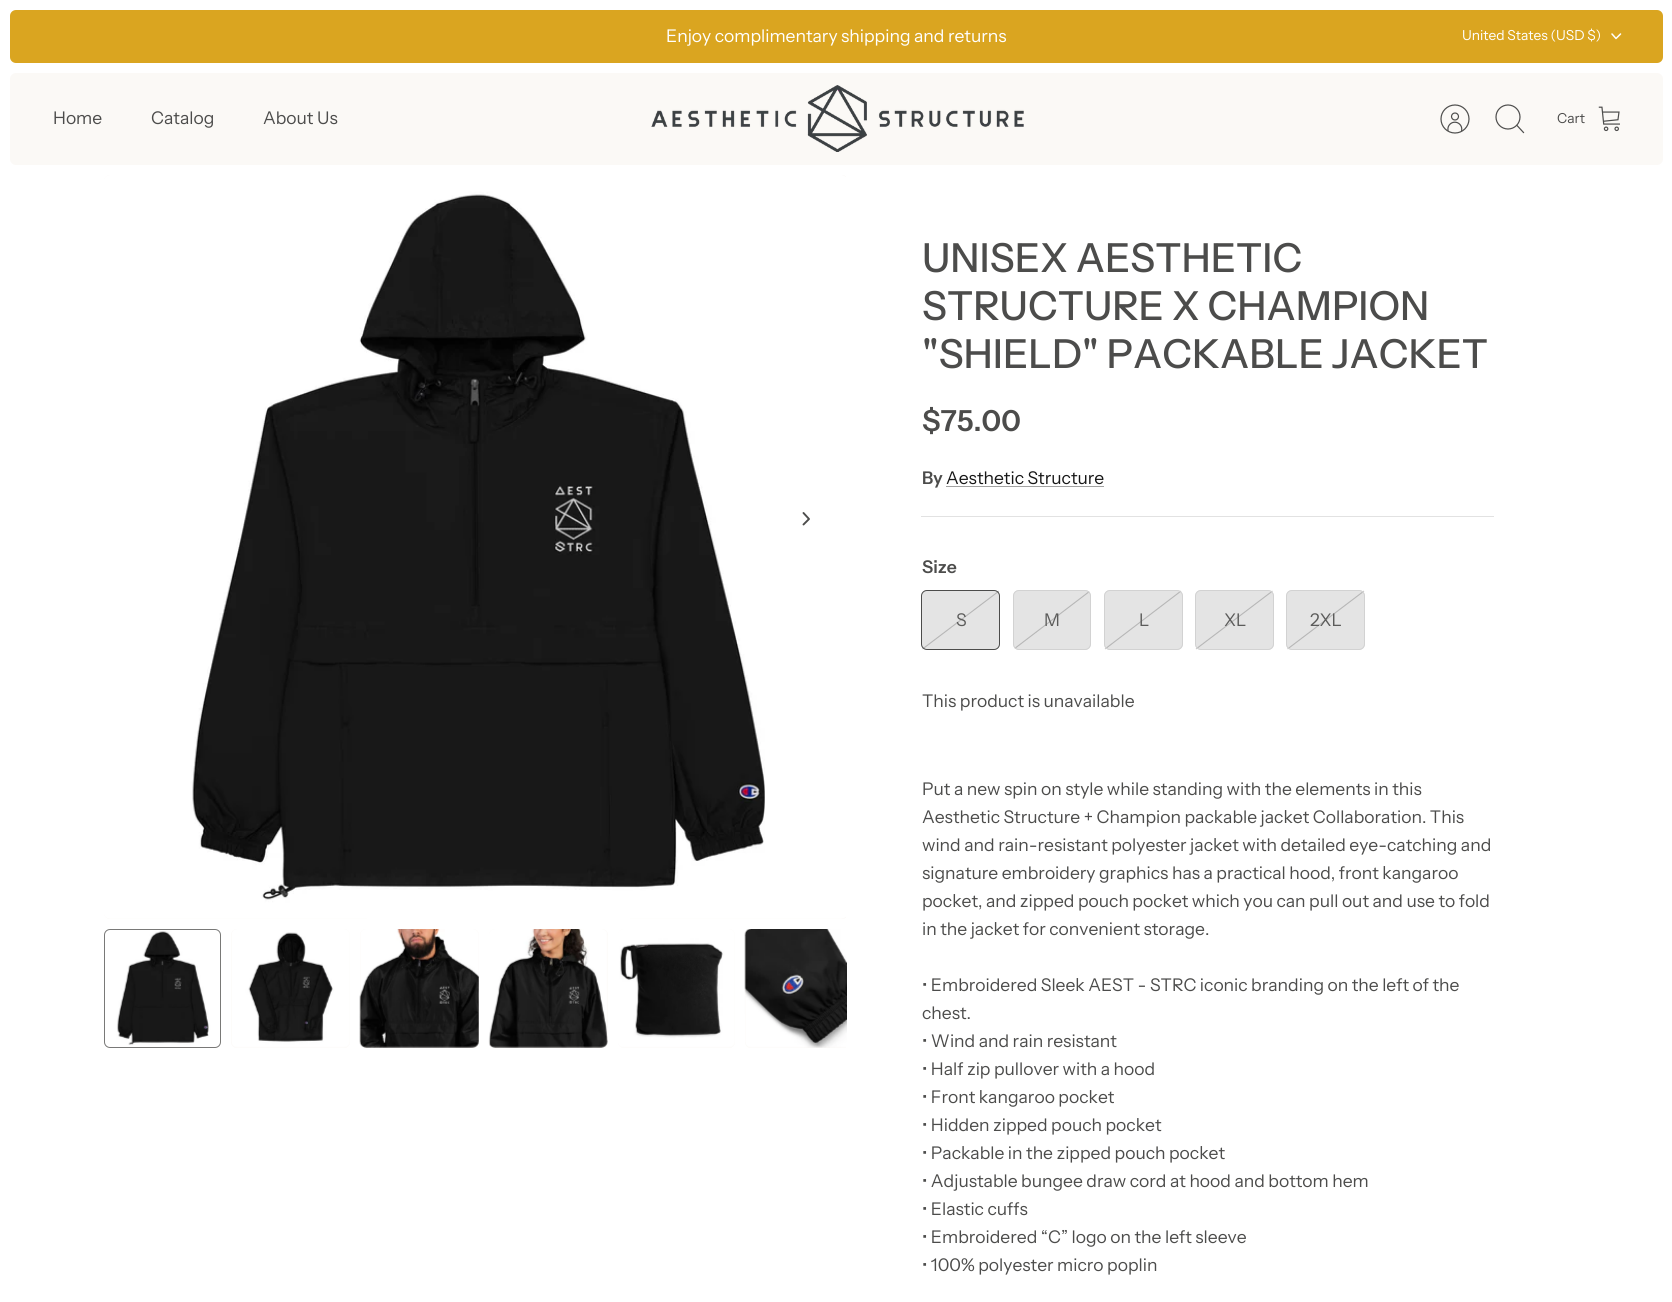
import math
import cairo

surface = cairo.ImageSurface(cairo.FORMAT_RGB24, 1672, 1302)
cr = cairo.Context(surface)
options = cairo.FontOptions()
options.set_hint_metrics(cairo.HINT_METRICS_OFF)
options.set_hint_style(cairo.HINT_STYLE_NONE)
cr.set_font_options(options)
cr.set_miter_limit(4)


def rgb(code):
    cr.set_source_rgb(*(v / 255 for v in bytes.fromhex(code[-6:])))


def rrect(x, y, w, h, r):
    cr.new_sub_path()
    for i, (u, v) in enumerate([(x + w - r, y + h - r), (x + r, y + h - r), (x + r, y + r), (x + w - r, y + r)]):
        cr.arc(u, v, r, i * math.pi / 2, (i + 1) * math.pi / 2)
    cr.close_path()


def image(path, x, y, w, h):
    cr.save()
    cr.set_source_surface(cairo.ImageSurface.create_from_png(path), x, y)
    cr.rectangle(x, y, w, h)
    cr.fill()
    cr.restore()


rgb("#ffffff")
cr.paint()
rgb("#daa520")
rrect(10, 10, 1653, 53, 6)
cr.fill()
cr.new_path()
cr.move_to(1612, 34)
cr.line_to(1616, 38.5)
cr.line_to(1620.5, 34)
rgb("#ffffff")
cr.set_line_width(1.5)
cr.set_line_cap(cairo.LINE_CAP_ROUND)
cr.set_line_join(cairo.LINE_JOIN_ROUND)
cr.stroke()
rgb("#fbf9f6")
rrect(10, 73, 1653, 92, 6)
cr.fill()
image("img/1.png", 651, 85, 373, 67)
image("img/2.png", 1440, 104, 30, 30)
cr.arc(1508, 117, 12, 0, 2 * math.pi)
rgb("#4c4c4b")
cr.set_line_width(1.2)
cr.set_line_cap(cairo.LINE_CAP_BUTT)
cr.set_line_join(cairo.LINE_JOIN_MITER)
cr.stroke()
cr.new_path()
cr.move_to(1517, 125.5)
cr.line_to(1523.5, 132.5)
cr.set_line_cap(cairo.LINE_CAP_SQUARE)
cr.stroke()
image("img/3.png", 1598, 106, 22, 26)
cr.save()
cr.rectangle(104, 175, 742, 744)
cr.clip()
rgb("#fbf9f6")
rrect(104, 175, 744, 744, 6)
cr.fill()
cr.restore()
image("img/4.png", 104, 175, 742, 744)
cr.new_path()
cr.move_to(803.5, 524.5)
cr.line_to(809, 519)
cr.line_to(803.5, 513)
cr.set_line_width(1.9)
cr.set_line_cap(cairo.LINE_CAP_ROUND)
cr.set_line_join(cairo.LINE_JOIN_ROUND)
cr.stroke()
rgb("#fbf9f6")
rrect(104, 929, 117, 119, 6)
cr.fill()
image("img/5.png", 104, 929, 117, 119)
rrect(104.5, 929.5, 116, 118, 5.5)
cr.set_source_rgba(0.298, 0.298, 0.294, 0.75)
cr.set_line_width(1)
cr.set_line_cap(cairo.LINE_CAP_BUTT)
cr.set_line_join(cairo.LINE_JOIN_MITER)
cr.stroke()
rgb("#fbf9f6")
rrect(231, 929, 119, 119, 6)
cr.fill()
image("img/6.png", 231, 929, 119, 119)
rrect(360, 929, 119, 119, 6)
cr.fill()
image("img/7.png", 359, 929, 120, 119)
rrect(489, 929, 119, 119, 6)
cr.fill()
image("img/8.png", 488, 929, 120, 119)
rrect(618, 929, 117, 119, 6)
cr.fill()
image("img/9.png", 618, 929, 117, 119)
cr.new_path()
cr.move_to(751, 929)
cr.line_to(846, 929)
cr.line_to(846, 1048)
cr.line_to(751, 1048)
cr.curve_to(747.5, 1048, 745, 1045.5, 745, 1042)
cr.line_to(745, 935)
cr.curve_to(745, 931.5, 747.5, 929, 751, 929)
cr.close_path()
cr.fill()
image("img/10.png", 744, 929, 103, 119)
rgb("#a2a2a2")
cr.rectangle(946, 486, 158, 1)
cr.fill()
rgb("#e2e2e2")
cr.rectangle(921, 516, 573, 1)
cr.fill()
rgb("#e4e4e4")
rrect(921, 590, 79, 60, 6)
cr.fill()
cr.new_path()
cr.move_to(999, 591)
cr.line_to(922.5, 649)
cr.set_source_rgba(0.298, 0.298, 0.294, 0.3)
cr.set_line_width(1.1)
cr.stroke()
rrect(921.5, 590.5, 78, 59, 5.5)
rgb("#4c4c4b")
cr.set_line_width(1)
cr.stroke()
rgb("#e4e4e4")
rrect(1013, 590, 78, 60, 6)
cr.fill()
cr.save()
rrect(1013, 590, 78, 60, 6)
cr.clip()
cr.new_path()
cr.move_to(1090, 591)
cr.line_to(1014, 649)
rgb("#b6b6b6")
cr.set_line_width(1.1)
cr.stroke()
cr.restore()
rrect(1013.5, 590.5, 77, 59, 5.5)
rgb("#d2d2d2")
cr.stroke()
rgb("#e4e4e4")
rrect(1104, 590, 79, 60, 6)
cr.fill()
cr.new_path()
cr.move_to(1181, 591)
cr.line_to(1105, 649)
cr.set_source_rgba(0.298, 0.298, 0.294, 0.3)
cr.set_line_width(1.1)
cr.stroke()
rrect(1104.5, 590.5, 78, 59, 5.5)
rgb("#d2d2d2")
cr.set_line_width(1)
cr.stroke()
rgb("#e4e4e4")
rrect(1195, 590, 79, 60, 6)
cr.fill()
cr.new_path()
cr.move_to(1272.5, 591)
cr.line_to(1196, 649)
cr.set_source_rgba(0.298, 0.298, 0.294, 0.3)
cr.set_line_width(1.1)
cr.stroke()
rrect(1195.5, 590.5, 78, 59, 5.5)
rgb("#d2d2d2")
cr.set_line_width(1)
cr.stroke()
rgb("#e4e4e4")
rrect(1286, 590, 79, 60, 6)
cr.fill()
cr.new_path()
cr.move_to(1364, 591)
cr.line_to(1287.5, 649)
cr.set_source_rgba(0.298, 0.298, 0.294, 0.3)
cr.set_line_width(1.1)
cr.stroke()
rrect(1286.5, 590.5, 78, 59, 5.5)
rgb("#d2d2d2")
cr.set_line_width(1)
cr.stroke()
cr.select_font_face("Instrument Sans")
cr.set_font_size(17.5)
rgb("#ffffff")
cr.move_to(666, 42)
cr.show_text("Enjoy complimentary shipping and returns")
cr.set_font_size(13.75)
cr.move_to(1462, 40)
cr.show_text("United States (USD $)")
cr.set_font_size(17.5)
rgb("#4c4c4b")
for x, y, s in [
    (53, 124, "Home"),
    (151, 124, "Catalog"),
    (263, 124, "About Us"),
]:
    cr.move_to(x, y)
    cr.show_text(s)
cr.set_font_size(13.75)
cr.move_to(1557, 123)
cr.show_text("Cart")
cr.select_font_face("Instrument Sans Medium")
cr.set_font_size(40)
for x, y, s in [
    (922, 272, "UNISEX AESTHETIC"),
    (922, 320, "STRUCTURE X CHAMPION"),
    (922, 368, "\"SHIELD\" PACKABLE JACKET"),
]:
    cr.move_to(x, y)
    cr.show_text(s)
cr.select_font_face("Instrument Sans SemiBold")
cr.set_font_size(29)
cr.move_to(922, 431)
cr.show_text("$75.00")
cr.set_font_size(17.5)
cr.move_to(922, 484)
cr.show_text("By")
cr.select_font_face("Instrument Sans")
rgb("#171717")
cr.move_to(946, 484)
cr.show_text("Aesthetic Structure")
cr.select_font_face("Instrument Sans SemiBold")
rgb("#4c4c4b")
cr.move_to(922, 573)
cr.show_text("Size")
cr.select_font_face("Instrument Sans")
rgb("#5b5b5a")
for x, y, s in [
    (956, 626, "S"),
    (1044, 626, "M"),
    (1139, 626, "L"),
    (1224, 626, "XL"),
    (1310, 626, "2XL"),
]:
    cr.move_to(x, y)
    cr.show_text(s)
rgb("#4c4c4b")
for x, y, s in [
    (922, 707, "This product is unavailable"),
    (922, 795, "Put a new spin on style while standing with the elements in this"),
    (922, 823, "Aesthetic Structure + Champion packable jacket Collaboration. This"),
    (922, 851, "wind and rain-resistant polyester jacket with detailed eye-catching and"),
    (922, 879, "signature embroidery graphics has a practical hood, front kangaroo"),
    (922, 907, "pocket, and zipped pouch pocket which you can pull out and use to fold"),
    (922, 935, "in the jacket for convenient storage."),
    (922, 991, "• Embroidered Sleek AEST - STRC iconic branding on the left of the"),
    (922, 1019, "chest."),
    (922, 1047, "• Wind and rain resistant"),
    (922, 1075, "• Half zip pullover with a hood"),
    (922, 1103, "• Front kangaroo pocket"),
    (922, 1131, "• Hidden zipped pouch pocket"),
    (922, 1159, "• Packable in the zipped pouch pocket"),
    (922, 1187, "• Adjustable bungee draw cord at hood and bottom hem"),
    (922, 1215, "• Elastic cuffs"),
    (922, 1243, "• Embroidered “C” logo on the left sleeve"),
    (922, 1271, "• 100% polyester micro poplin"),
]:
    cr.move_to(x, y)
    cr.show_text(s)
surface.write_to_png("page.png")
